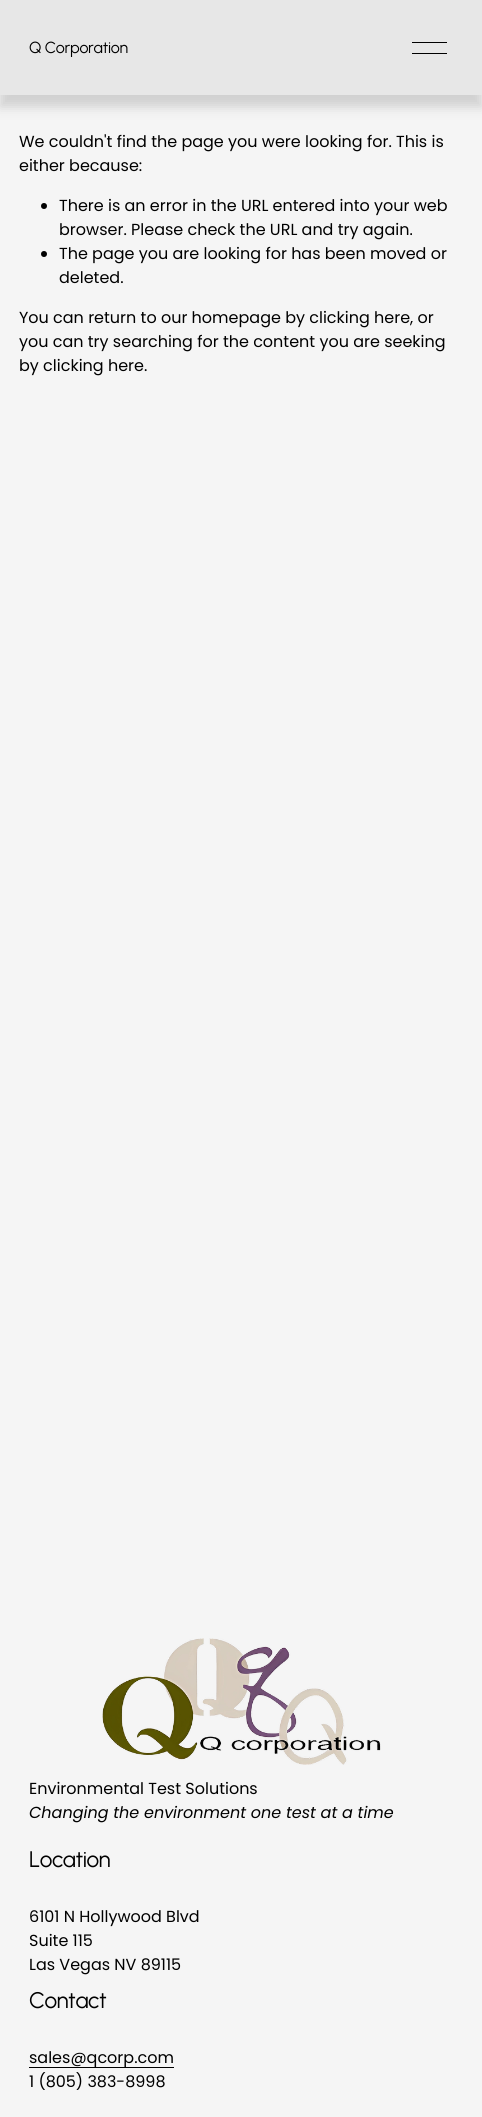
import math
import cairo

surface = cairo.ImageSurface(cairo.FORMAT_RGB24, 482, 2117)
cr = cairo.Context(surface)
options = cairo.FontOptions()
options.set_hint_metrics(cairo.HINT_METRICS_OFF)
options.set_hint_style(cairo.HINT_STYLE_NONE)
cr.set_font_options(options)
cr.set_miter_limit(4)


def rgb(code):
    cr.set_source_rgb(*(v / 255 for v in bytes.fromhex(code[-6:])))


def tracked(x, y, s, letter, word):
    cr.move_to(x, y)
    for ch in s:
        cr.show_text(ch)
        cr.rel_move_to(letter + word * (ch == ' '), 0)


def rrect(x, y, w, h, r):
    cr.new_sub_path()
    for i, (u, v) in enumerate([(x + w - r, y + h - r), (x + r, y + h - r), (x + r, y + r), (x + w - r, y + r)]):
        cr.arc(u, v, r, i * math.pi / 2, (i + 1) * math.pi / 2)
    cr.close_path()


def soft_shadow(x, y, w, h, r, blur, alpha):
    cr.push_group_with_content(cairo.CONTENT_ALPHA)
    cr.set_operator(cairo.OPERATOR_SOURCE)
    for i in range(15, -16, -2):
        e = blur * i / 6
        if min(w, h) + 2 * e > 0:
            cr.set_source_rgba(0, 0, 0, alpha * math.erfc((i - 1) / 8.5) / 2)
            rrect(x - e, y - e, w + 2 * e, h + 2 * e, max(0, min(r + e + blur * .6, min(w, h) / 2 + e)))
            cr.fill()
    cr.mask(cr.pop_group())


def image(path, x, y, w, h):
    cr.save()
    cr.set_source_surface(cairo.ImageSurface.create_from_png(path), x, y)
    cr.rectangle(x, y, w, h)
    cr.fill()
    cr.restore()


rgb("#f5f5f5")
cr.paint()
rgb("#d0d0d0")
soft_shadow(0, 12, 482, 95, 0, 6, 1)
for x, y, w, h, color in [
    (0, 0, 482, 95, "#e7e7e7"),
    (412, 42, 35, 1, "#000000"),
    (412, 53, 35, 1, "#000000"),
]:
    rgb(color)
    cr.rectangle(x, y, w, h)
    cr.fill()
cr.arc(44, 206, 3, 0, 2 * math.pi)
cr.fill()
cr.arc(44, 254, 3, 0, 2 * math.pi)
cr.fill()
image("img/1.png", 102, 1638, 279, 127)
cr.rectangle(29, 2067, 145, 1)
cr.fill()
cr.select_font_face("Urbanist")
cr.set_font_size(16)
tracked(29, 53, "Q Corporation", -0.25, 0)
cr.select_font_face("Poppins")
for x, y, s in [
    (19, 147, "We couldn't find the page you were looking for. This is"),
    (19, 171, "either because:"),
    (59, 211, "There is an error in the URL entered into your web"),
    (59, 235, "browser. Please check the URL and try again."),
    (59, 259, "The page you are looking for has been moved or"),
    (59, 283, "deleted."),
    (19, 323, "You can return to our homepage by clicking here, or"),
    (19, 347, "you can try searching for the content you are seeking"),
    (19, 371, "by clicking here."),
    (29, 1794, "Environmental Test Solutions"),
]:
    cr.move_to(x, y)
    cr.show_text(s)
cr.select_font_face("Poppins", cairo.FONT_SLANT_ITALIC)
cr.move_to(29, 1818)
cr.show_text("Changing the environment one test at a time")
cr.select_font_face("Urbanist")
cr.set_font_size(22.5)
tracked(29, 1867, "Location", -0.5, 0)
cr.select_font_face("Poppins")
cr.set_font_size(16)
for x, y, s in [
    (29, 1922, "6101 N Hollywood Blvd"),
    (29, 1946, "Suite 115"),
    (29, 1970, "Las Vegas NV 89115"),
]:
    cr.move_to(x, y)
    cr.show_text(s)
cr.select_font_face("Urbanist")
cr.set_font_size(22.5)
tracked(29, 2008, "Contact", -0.5, 0)
cr.select_font_face("Poppins")
cr.set_font_size(16)
cr.move_to(29, 2063)
cr.show_text("sales@qcorp.com")
cr.move_to(29, 2087)
cr.show_text("1 (805) 383-8998")
surface.write_to_png("page.png")
